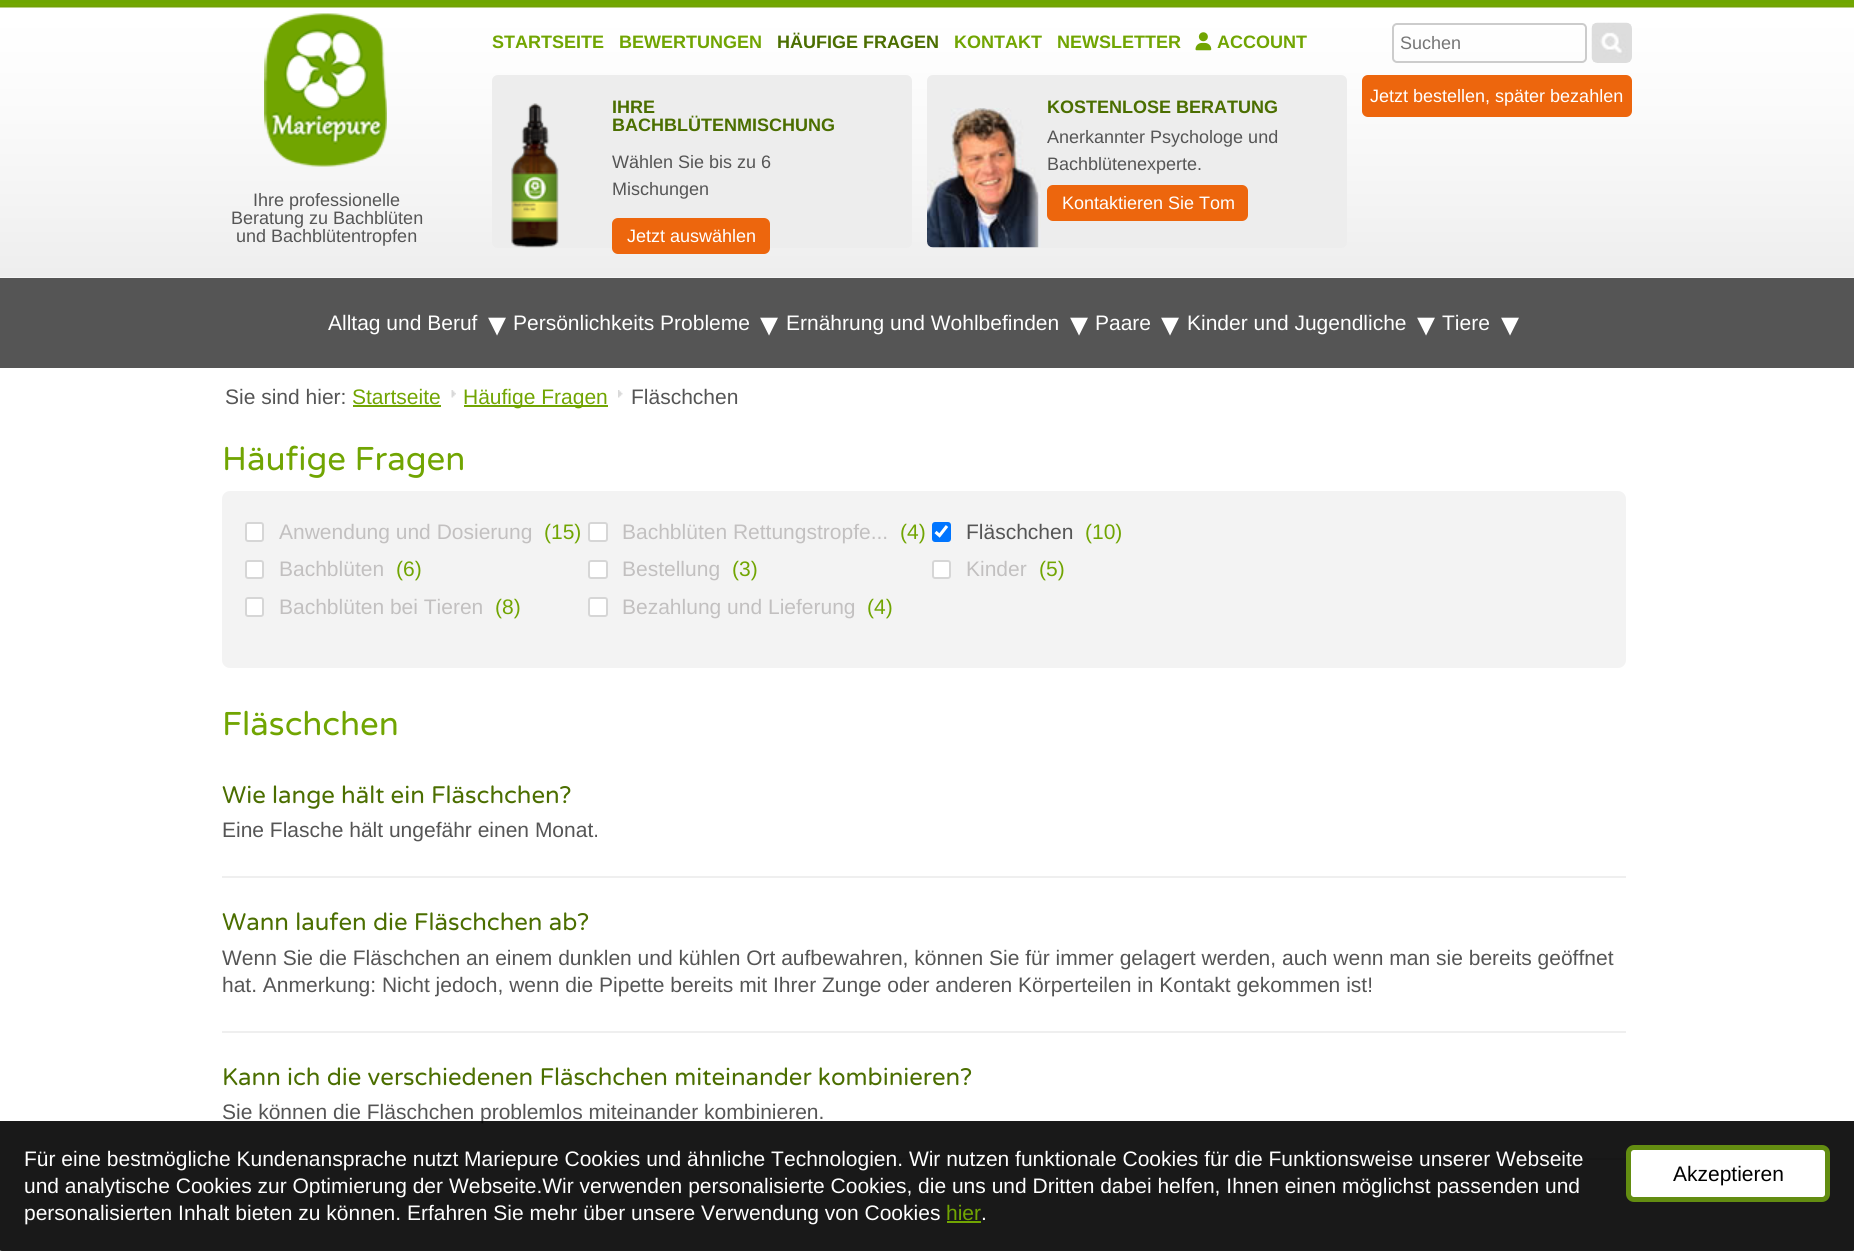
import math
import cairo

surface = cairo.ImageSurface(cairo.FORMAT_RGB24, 1854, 1251)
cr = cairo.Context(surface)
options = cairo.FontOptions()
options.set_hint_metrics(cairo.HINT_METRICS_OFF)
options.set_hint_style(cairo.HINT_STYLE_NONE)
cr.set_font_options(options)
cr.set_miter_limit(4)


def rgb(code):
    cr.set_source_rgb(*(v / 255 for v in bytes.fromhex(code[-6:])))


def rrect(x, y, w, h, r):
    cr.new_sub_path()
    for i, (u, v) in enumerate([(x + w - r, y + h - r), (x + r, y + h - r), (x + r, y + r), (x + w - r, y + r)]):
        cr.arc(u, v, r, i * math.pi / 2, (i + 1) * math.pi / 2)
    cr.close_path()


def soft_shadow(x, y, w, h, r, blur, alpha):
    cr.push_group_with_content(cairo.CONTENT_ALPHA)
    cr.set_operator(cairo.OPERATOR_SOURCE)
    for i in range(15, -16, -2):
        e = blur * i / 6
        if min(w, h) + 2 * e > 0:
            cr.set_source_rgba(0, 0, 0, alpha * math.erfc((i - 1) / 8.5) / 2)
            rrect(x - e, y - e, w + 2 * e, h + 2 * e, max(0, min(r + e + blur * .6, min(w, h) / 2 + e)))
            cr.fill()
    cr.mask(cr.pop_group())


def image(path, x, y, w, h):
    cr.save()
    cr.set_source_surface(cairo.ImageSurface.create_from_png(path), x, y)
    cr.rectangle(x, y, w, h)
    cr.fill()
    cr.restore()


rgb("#ffffff")
cr.paint()
image("img/1.png", 0, 0, 1854, 278)
image("img/2.png", 1195, 32, 17, 19)
rrect(1393, 24, 193, 38, 4)
rgb("#cccccc")
cr.stroke()
image("img/3.png", 1591, 22, 41, 41)
image("img/4.png", 264, 13, 123, 154)
rgb("#ed660d")
rrect(1362, 75, 270, 42, 6)
cr.fill()
rgb("#ededed")
rrect(492, 75, 420, 173, 6)
cr.fill()
image("img/5.png", 511, 103, 48, 145)
rgb("#ed660d")
rrect(612, 218, 158, 36, 6)
cr.fill()
rgb("#ededed")
rrect(927, 75, 420, 173, 6)
cr.fill()
image("img/6.png", 927, 108, 114, 140)
rgb("#ed660d")
rrect(1047, 185, 201, 36, 6)
cr.fill()
rgb("#555555")
cr.rectangle(0, 278, 1854, 90)
cr.fill()
rgb("#71a502")
cr.rectangle(353, 405, 88, 2)
cr.fill()
image("img/7.png", 451, 390, 5, 8)
cr.rectangle(464, 405, 144, 2)
cr.fill()
image("img/8.png", 618, 390, 5, 8)
rgb("#f3f3f3")
rrect(222, 491, 1404, 177, 8)
cr.fill()
rgb("#ffffff")
rrect(245, 522, 19, 20, 3)
cr.fill()
rrect(246, 523, 17, 18, 2)
cr.set_source_rgba(0.463, 0.463, 0.463, 0.3)
cr.stroke()
rgb("#ffffff")
rrect(245, 560, 19, 19, 3)
cr.fill()
rrect(246, 561, 17, 17, 2)
cr.set_source_rgba(0.463, 0.463, 0.463, 0.3)
cr.stroke()
rgb("#ffffff")
rrect(245, 597, 19, 20, 3)
cr.fill()
rrect(246, 598, 17, 18, 2)
cr.set_source_rgba(0.463, 0.463, 0.463, 0.3)
cr.stroke()
rgb("#ffffff")
rrect(588, 522, 20, 20, 3)
cr.fill()
rrect(589, 523, 18, 18, 2)
cr.set_source_rgba(0.463, 0.463, 0.463, 0.3)
cr.stroke()
rgb("#ffffff")
rrect(588, 560, 20, 19, 3)
cr.fill()
rrect(589, 561, 18, 17, 2)
cr.set_source_rgba(0.463, 0.463, 0.463, 0.3)
cr.stroke()
rgb("#ffffff")
rrect(588, 597, 20, 20, 3)
cr.fill()
rrect(589, 598, 18, 18, 2)
cr.set_source_rgba(0.463, 0.463, 0.463, 0.3)
cr.stroke()
rgb("#0075ff")
rrect(932, 522, 19, 20, 3)
cr.fill()
cr.new_path()
cr.move_to(935.5, 532)
cr.line_to(939.5, 535.5)
cr.line_to(947, 526)
rgb("#ffffff")
cr.set_line_width(3.1)
cr.stroke()
rrect(932, 560, 19, 19, 3)
cr.fill()
rrect(933, 561, 17, 17, 2)
cr.set_source_rgba(0.463, 0.463, 0.463, 0.3)
cr.set_line_width(2)
cr.stroke()
for x, y, w, h, color in [
    (222, 876, 1404, 2, "#efefef"),
    (222, 1031, 1404, 2, "#efefef"),
    (222, 1158, 1404, 2, "#efefef"),
]:
    rgb(color)
    cr.rectangle(x, y, w, h)
    cr.fill()
cr.save()
cr.set_fill_rule(cairo.FILL_RULE_EVEN_ODD)
cr.new_path()
cr.move_to(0, 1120)
cr.line_to(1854, 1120)
cr.line_to(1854, 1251)
cr.line_to(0, 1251)
cr.close_path()
cr.move_to(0, 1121)
cr.line_to(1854, 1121)
cr.line_to(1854, 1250)
cr.line_to(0, 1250)
cr.close_path()
cr.clip()
rgb("#000000")
soft_shadow(0, 1124, 1854, 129, 0, 1, 0.9)
cr.restore()
cr.select_font_face("Liberation Sans", cairo.FONT_SLANT_NORMAL, cairo.FONT_WEIGHT_BOLD)
cr.set_font_size(18)
rgb("#71a502")
cr.move_to(492, 48)
cr.show_text("STARTSEITE")
cr.move_to(619, 48)
cr.show_text("BEWERTUNGEN")
rgb("#4b6e00")
cr.move_to(777, 48)
cr.show_text("HÄUFIGE FRAGEN")
rgb("#71a502")
for x, y, s in [
    (954, 48, "KONTAKT"),
    (1057, 48, "NEWSLETTER"),
    (1217, 48, "ACCOUNT"),
]:
    cr.move_to(x, y)
    cr.show_text(s)
cr.select_font_face("Liberation Sans")
rgb("#757575")
cr.move_to(1400, 49)
cr.show_text("Suchen")
rgb("#555555")
for x, y, s in [
    (253, 206, "Ihre professionelle"),
    (231, 224, "Beratung zu Bachblüten"),
    (236, 242, "und Bachblütentropfen"),
]:
    cr.move_to(x, y)
    cr.show_text(s)
rgb("#ffffff")
cr.move_to(1370, 102)
cr.show_text("Jetzt bestellen, später bezahlen")
cr.select_font_face("Liberation Sans", cairo.FONT_SLANT_NORMAL, cairo.FONT_WEIGHT_BOLD)
rgb("#4b6e00")
cr.move_to(612, 113)
cr.show_text("IHRE")
cr.move_to(612, 131)
cr.show_text("BACHBLÜTENMISCHUNG")
cr.select_font_face("Liberation Sans")
rgb("#555555")
cr.move_to(612, 168)
cr.show_text("Wählen Sie bis zu 6")
cr.move_to(612, 195)
cr.show_text("Mischungen")
rgb("#ffffff")
cr.move_to(627, 242)
cr.show_text("Jetzt auswählen")
cr.select_font_face("Liberation Sans", cairo.FONT_SLANT_NORMAL, cairo.FONT_WEIGHT_BOLD)
rgb("#4b6e00")
cr.move_to(1047, 113)
cr.show_text("KOSTENLOSE BERATUNG")
cr.select_font_face("Liberation Sans")
rgb("#555555")
cr.move_to(1047, 143)
cr.show_text("Anerkannter Psychologe und")
cr.move_to(1047, 170)
cr.show_text("Bachblütenexperte.")
rgb("#ffffff")
cr.move_to(1062, 209)
cr.show_text("Kontaktieren Sie Tom")
cr.set_font_size(21)
cr.move_to(328, 330)
cr.show_text("Alltag und Beruf")
cr.select_font_face("DejaVu Sans")
cr.set_font_size(36)
cr.move_to(488, 336)
cr.show_text("▾")
cr.select_font_face("Liberation Sans")
cr.set_font_size(21)
cr.move_to(513, 330)
cr.show_text("Persönlichkeits Probleme")
cr.select_font_face("DejaVu Sans")
cr.set_font_size(36)
cr.move_to(760, 336)
cr.show_text("▾")
cr.select_font_face("Liberation Sans")
cr.set_font_size(21)
cr.move_to(786, 330)
cr.show_text("Ernährung und Wohlbefinden")
cr.select_font_face("DejaVu Sans")
cr.set_font_size(36)
cr.move_to(1070, 336)
cr.show_text("▾")
cr.select_font_face("Liberation Sans")
cr.set_font_size(21)
cr.move_to(1095, 330)
cr.show_text("Paare")
cr.select_font_face("DejaVu Sans")
cr.set_font_size(36)
cr.move_to(1161, 336)
cr.show_text("▾")
cr.select_font_face("Liberation Sans")
cr.set_font_size(21)
cr.move_to(1187, 330)
cr.show_text("Kinder und Jugendliche")
cr.select_font_face("DejaVu Sans")
cr.set_font_size(36)
cr.move_to(1417, 336)
cr.show_text("▾")
cr.select_font_face("Liberation Sans")
cr.set_font_size(21)
cr.move_to(1442, 330)
cr.show_text("Tiere")
cr.select_font_face("DejaVu Sans")
cr.set_font_size(36)
cr.move_to(1501, 336)
cr.show_text("▾")
cr.select_font_face("Liberation Sans")
cr.set_font_size(21)
rgb("#555555")
cr.move_to(225, 404)
cr.show_text("Sie sind hier:")
rgb("#71a502")
cr.move_to(352, 404)
cr.show_text("Startseite")
cr.move_to(463, 404)
cr.show_text("Häufige Fragen")
rgb("#555555")
cr.move_to(631, 404)
cr.show_text("Fläschchen")
cr.select_font_face("Varela Round")
cr.set_font_size(33)
rgb("#71a502")
cr.move_to(222, 470)
cr.show_text("Häufige Fragen")
cr.select_font_face("Liberation Sans")
cr.set_font_size(21)
rgb("#c2c0c0")
cr.move_to(279, 539)
cr.show_text("Anwendung und Dosierung")
rgb("#71a502")
cr.move_to(544, 539)
cr.show_text("(15)")
rgb("#c2c0c0")
cr.move_to(279, 576)
cr.show_text("Bachblüten")
rgb("#71a502")
cr.move_to(396, 576)
cr.show_text("(6)")
rgb("#c2c0c0")
cr.move_to(279, 614)
cr.show_text("Bachblüten bei Tieren")
rgb("#71a502")
cr.move_to(495, 614)
cr.show_text("(8)")
rgb("#c2c0c0")
cr.move_to(622, 539)
cr.show_text("Bachblüten Rettungstropfe...")
rgb("#71a502")
cr.move_to(900, 539)
cr.show_text("(4)")
rgb("#c2c0c0")
cr.move_to(622, 576)
cr.show_text("Bestellung")
rgb("#71a502")
cr.move_to(732, 576)
cr.show_text("(3)")
rgb("#c2c0c0")
cr.move_to(622, 614)
cr.show_text("Bezahlung und Lieferung")
rgb("#71a502")
cr.move_to(867, 614)
cr.show_text("(4)")
rgb("#555555")
cr.move_to(966, 539)
cr.show_text("Fläschchen")
rgb("#71a502")
cr.move_to(1085, 539)
cr.show_text("(10)")
rgb("#c2c0c0")
cr.move_to(966, 576)
cr.show_text("Kinder")
rgb("#71a502")
cr.move_to(1039, 576)
cr.show_text("(5)")
cr.select_font_face("Varela Round")
cr.set_font_size(33)
cr.move_to(222, 735)
cr.show_text("Fläschchen")
cr.set_font_size(24)
rgb("#4b6e00")
cr.move_to(222, 803)
cr.show_text("Wie lange hält ein Fläschchen?")
cr.select_font_face("Liberation Sans")
cr.set_font_size(21)
rgb("#555555")
cr.move_to(222, 837)
cr.show_text("Eine Flasche hält ungefähr einen Monat.")
cr.select_font_face("Varela Round")
cr.set_font_size(24)
rgb("#4b6e00")
cr.move_to(222, 930)
cr.show_text("Wann laufen die Fläschchen ab?")
cr.select_font_face("Liberation Sans")
cr.set_font_size(21)
rgb("#555555")
cr.move_to(222, 965)
cr.show_text("Wenn Sie die Fläschchen an einem dunklen und kühlen Ort aufbewahren, können Sie für immer gelagert werden, auch wenn man sie bereits geöffnet")
cr.move_to(222, 992)
cr.show_text("hat. Anmerkung: Nicht jedoch, wenn die Pipette bereits mit Ihrer Zunge oder anderen Körperteilen in Kontakt gekommen ist!")
cr.select_font_face("Varela Round")
cr.set_font_size(24)
rgb("#4b6e00")
cr.move_to(222, 1085)
cr.show_text("Kann ich die verschiedenen Fläschchen miteinander kombinieren?")
cr.select_font_face("Liberation Sans")
cr.set_font_size(21)
rgb("#555555")
cr.move_to(222, 1119)
cr.show_text("Sie können die Fläschchen problemlos miteinander kombinieren.")
cr.set_source_rgba(0, 0, 0, 0.9)
cr.rectangle(0, 1121, 1854, 129)
cr.fill()
rgb("#ffffff")
for x, y, s in [
    (24, 1166, "Für eine bestmögliche Kundenansprache nutzt Mariepure Cookies und ähnliche Technologien. Wir nutzen funktionale Cookies für die Funktionsweise unserer Webseite"),
    (24, 1193, "und analytische Cookies zur Optimierung der Webseite.Wir verwenden personalisierte Cookies, die uns und Dritten dabei helfen, Ihnen einen möglichst passenden und"),
    (24, 1220, "personalisierten Inhalt bieten zu können. Erfahren Sie mehr über unsere Verwendung von Cookies"),
]:
    cr.move_to(x, y)
    cr.show_text(s)
rgb("#71a502")
cr.move_to(946, 1220)
cr.show_text("hier")
cr.rectangle(947, 1221, 34, 2)
cr.fill()
rgb("#ffffff")
cr.move_to(981, 1220)
cr.show_text(".")
rrect(1628.5, 1147.5, 199, 52, 5.5)
cr.fill_preserve()
rgb("#638d11")
cr.set_line_width(5)
cr.stroke()
rgb("#000000")
cr.move_to(1673, 1181)
cr.show_text("Akzeptieren")
surface.write_to_png("page.png")
